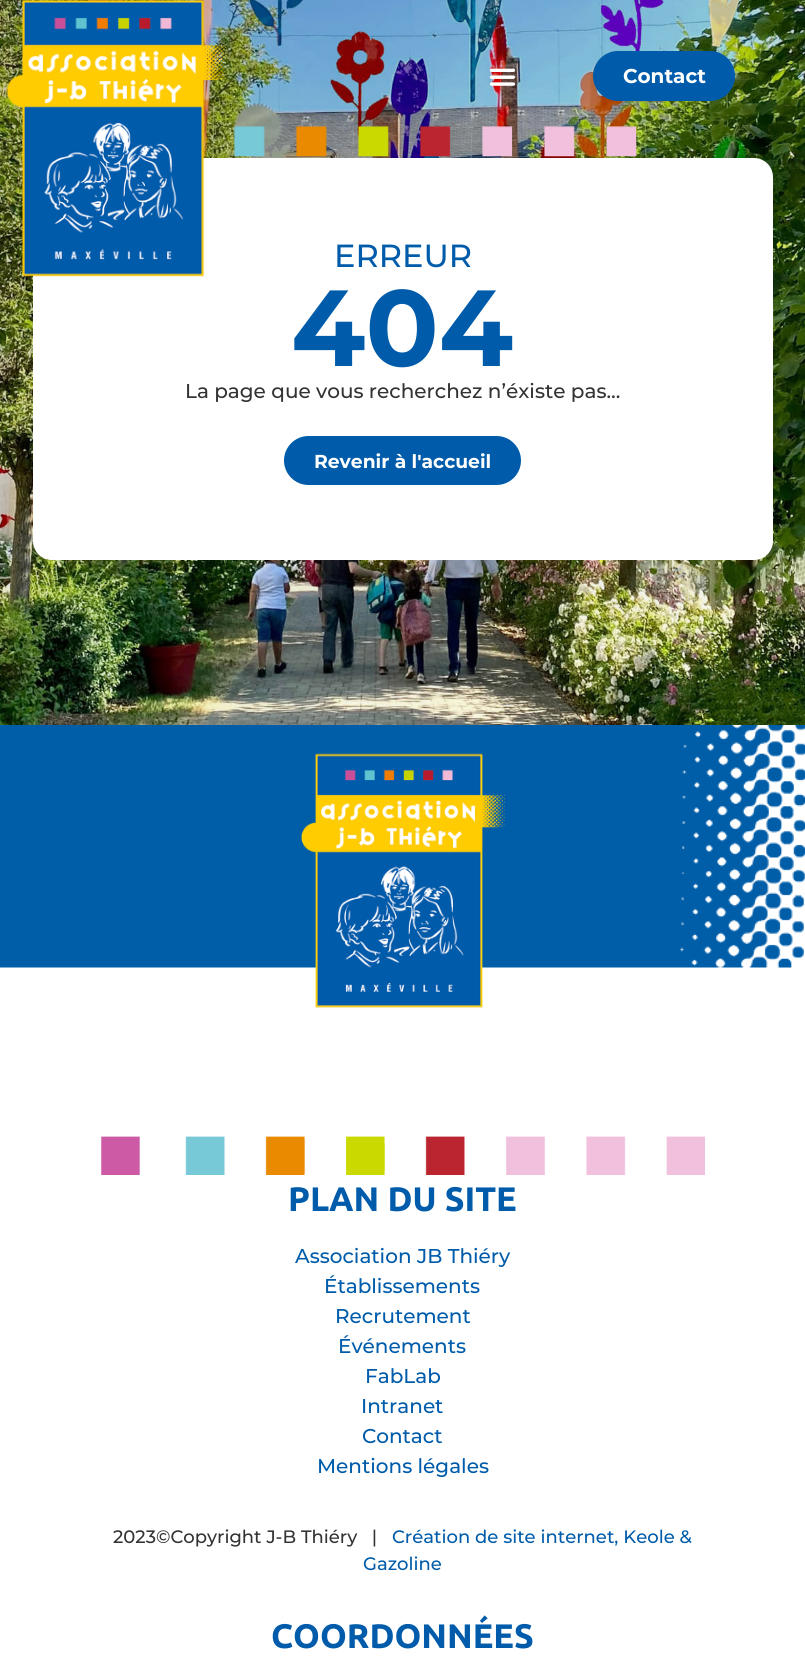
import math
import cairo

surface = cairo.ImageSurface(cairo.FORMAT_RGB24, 805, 1668)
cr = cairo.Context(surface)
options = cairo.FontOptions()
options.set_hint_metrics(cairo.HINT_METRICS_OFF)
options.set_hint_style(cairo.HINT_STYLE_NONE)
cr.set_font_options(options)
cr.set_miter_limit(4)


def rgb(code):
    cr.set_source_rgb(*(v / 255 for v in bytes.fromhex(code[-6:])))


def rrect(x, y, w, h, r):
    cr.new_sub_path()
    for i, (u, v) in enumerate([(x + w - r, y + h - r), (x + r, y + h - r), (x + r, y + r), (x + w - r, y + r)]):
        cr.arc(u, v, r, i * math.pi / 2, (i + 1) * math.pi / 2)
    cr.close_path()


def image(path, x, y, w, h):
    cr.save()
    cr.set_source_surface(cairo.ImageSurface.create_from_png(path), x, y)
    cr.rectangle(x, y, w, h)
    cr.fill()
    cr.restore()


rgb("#ffffff")
cr.paint()
image("img/3.png", 0, 0, 805, 725)
rgb("#ffffff")
rrect(33, 158, 740, 402, 19)
cr.fill()
image("img/1.png", 6, 0, 222, 277)
image("img/2.png", 489, 68, 27, 18)
rgb("#005caa")
rrect(593, 51, 142, 50, 25)
cr.fill()
image("img/4.png", 233, 126, 404, 31)
rrect(284, 436, 237, 49, 24.5)
cr.fill()
image("img/5.png", 0, 725, 805, 243)
image("img/6.png", 301, 753, 204, 255)
image("img/7.png", 101, 1136, 604, 39)
cr.select_font_face("Montserrat", cairo.FONT_SLANT_NORMAL, cairo.FONT_WEIGHT_BOLD)
cr.set_font_size(20)
rgb("#ffffff")
cr.move_to(623, 83)
cr.show_text("Contact")
cr.select_font_face("Montserrat Medium")
cr.set_font_size(32)
rgb("#005caa")
cr.move_to(334, 267)
cr.show_text("ERREUR")
cr.select_font_face("Montserrat", cairo.FONT_SLANT_NORMAL, cairo.FONT_WEIGHT_BOLD)
cr.set_font_size(108)
cr.move_to(291, 366)
cr.show_text("404")
cr.select_font_face("Montserrat Medium")
cr.set_font_size(20)
rgb("#333333")
cr.move_to(185, 398)
cr.show_text("La page que vous recherchez n’éxiste pas…")
cr.select_font_face("Montserrat", cairo.FONT_SLANT_NORMAL, cairo.FONT_WEIGHT_BOLD)
cr.set_font_size(18.75)
rgb("#ffffff")
cr.move_to(314, 468)
cr.show_text("Revenir à l'accueil")
cr.select_font_face("Ubuntu", cairo.FONT_SLANT_NORMAL, cairo.FONT_WEIGHT_BOLD)
cr.set_font_size(34)
rgb("#005caa")
cr.move_to(288, 1211)
cr.show_text("PLAN DU SITE")
cr.select_font_face("Montserrat Medium")
cr.set_font_size(20)
for x, y, s in [
    (295, 1263, "Association JB Thiéry"),
    (324, 1293, "Établissements"),
    (335, 1323, "Recrutement"),
    (338, 1353, "Événements"),
    (365, 1383, "FabLab"),
    (361, 1413, "Intranet"),
    (362, 1443, "Contact"),
    (317, 1473, "Mentions légales"),
]:
    cr.move_to(x, y)
    cr.show_text(s)
cr.set_font_size(18)
rgb("#333333")
cr.move_to(113, 1543)
cr.show_text("2023©Copyright J-B Thiéry   |")
rgb("#005caa")
cr.move_to(392, 1543)
cr.show_text("Création de site internet, Keole &")
cr.move_to(363, 1570)
cr.show_text("Gazoline")
cr.select_font_face("Ubuntu", cairo.FONT_SLANT_NORMAL, cairo.FONT_WEIGHT_BOLD)
cr.set_font_size(34)
cr.move_to(271, 1648)
cr.show_text("COORDONNÉES")
surface.write_to_png("page.png")
